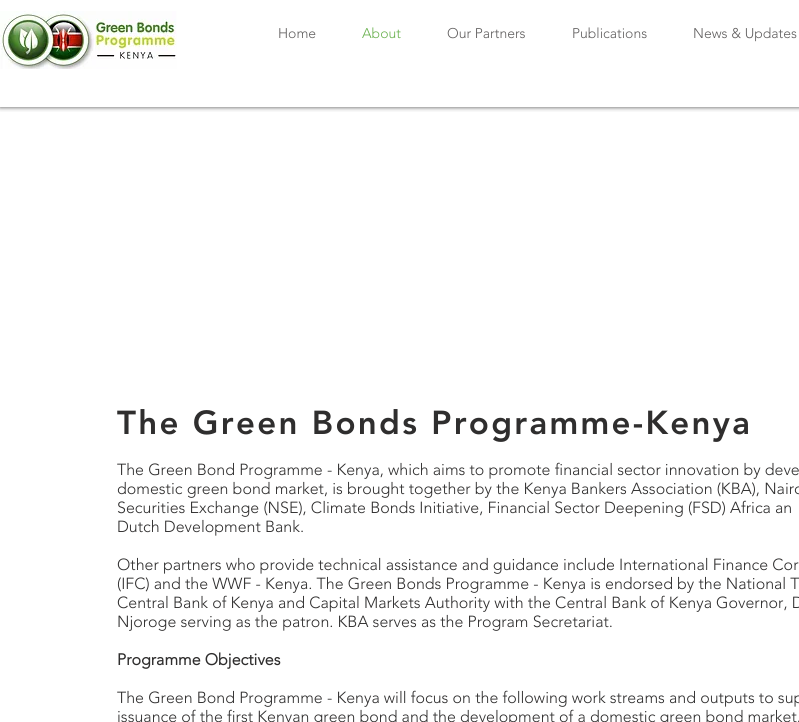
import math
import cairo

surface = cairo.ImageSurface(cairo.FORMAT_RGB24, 799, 722)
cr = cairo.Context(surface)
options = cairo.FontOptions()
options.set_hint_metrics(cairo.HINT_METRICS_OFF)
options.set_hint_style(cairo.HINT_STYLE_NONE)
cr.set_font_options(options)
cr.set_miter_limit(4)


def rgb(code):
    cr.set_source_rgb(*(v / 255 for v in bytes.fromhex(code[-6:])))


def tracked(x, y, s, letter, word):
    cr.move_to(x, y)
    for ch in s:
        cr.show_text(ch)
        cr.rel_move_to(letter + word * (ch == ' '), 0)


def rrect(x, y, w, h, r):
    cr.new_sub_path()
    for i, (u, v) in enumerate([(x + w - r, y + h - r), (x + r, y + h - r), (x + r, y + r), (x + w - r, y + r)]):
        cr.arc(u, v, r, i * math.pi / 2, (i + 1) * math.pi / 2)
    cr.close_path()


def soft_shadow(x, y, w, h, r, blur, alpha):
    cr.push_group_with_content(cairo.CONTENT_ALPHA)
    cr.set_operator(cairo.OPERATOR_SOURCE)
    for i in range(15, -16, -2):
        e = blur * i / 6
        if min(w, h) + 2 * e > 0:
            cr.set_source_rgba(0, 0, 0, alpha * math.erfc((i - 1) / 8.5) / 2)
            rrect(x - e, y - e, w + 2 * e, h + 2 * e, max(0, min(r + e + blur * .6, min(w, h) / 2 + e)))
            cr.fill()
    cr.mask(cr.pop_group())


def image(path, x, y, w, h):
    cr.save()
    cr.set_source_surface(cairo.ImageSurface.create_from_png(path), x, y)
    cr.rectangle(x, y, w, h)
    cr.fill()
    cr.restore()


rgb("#ffffff")
cr.paint()
cr.save()
cr.rectangle(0, 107, 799, 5)
cr.clip()
rgb("#000000")
soft_shadow(0, 0, 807, 107, 0, 2.5, 0.7)
cr.restore()
image("img/1.png", 0, 11, 177, 58)
cr.select_font_face("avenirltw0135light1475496 Light")
cr.set_font_size(14)
rgb("#605e5e")
cr.move_to(278, 38)
cr.show_text("Home")
rgb("#68b04d")
cr.move_to(362, 38)
cr.show_text("About")
rgb("#605e5e")
for x, y, s in [
    (447, 38, "Our Partners"),
    (572, 38, "Publications"),
    (693, 38, "News & Updates"),
]:
    cr.move_to(x, y)
    cr.show_text(s)
cr.select_font_face("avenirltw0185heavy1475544 Black")
cr.set_font_size(33)
rgb("#2f2e2e")
tracked(117, 434, "The Green Bonds Programme-Kenya", 2.3, 0)
cr.select_font_face("avenirltw0135light1475496 Light")
cr.set_font_size(16)
for x, y, s in [
    (117, 475, "The Green Bond Programme - Kenya, which aims to promote financial sector innovation by deve"),
    (117, 494, "domestic green bond market, is brought together by the Kenya Bankers Association (KBA), Nairo"),
    (117, 513, "Securities Exchange (NSE), Climate Bonds Initiative, Financial Sector Deepening (FSD) Africa an"),
    (117, 532, "Dutch Development Bank."),
    (117, 570, "Other partners who provide technical assistance and guidance include International Finance Cor"),
    (117, 589, "(IFC) and the WWF - Kenya. The Green Bonds Programme - Kenya is endorsed by the National T"),
    (117, 608, "Central Bank of Kenya and Capital Markets Authority with the Central Bank of Kenya Governor, D"),
    (117, 627, "Njoroge serving as the patron. KBA serves as the Program Secretariat."),
]:
    cr.move_to(x, y)
    cr.show_text(s)
cr.select_font_face("avenirltw0135light1475496", cairo.FONT_SLANT_NORMAL, cairo.FONT_WEIGHT_BOLD)
cr.move_to(117, 665)
cr.show_text("Programme Objectives")
cr.select_font_face("avenirltw0135light1475496 Light")
cr.move_to(117, 703)
cr.show_text("The Green Bond Programme - Kenya will focus on the following work streams and outputs to sup")
cr.move_to(117, 722)
cr.show_text("issuance of the first Kenyan green bond and the development of a domestic green bond market.")
surface.write_to_png("page.png")
